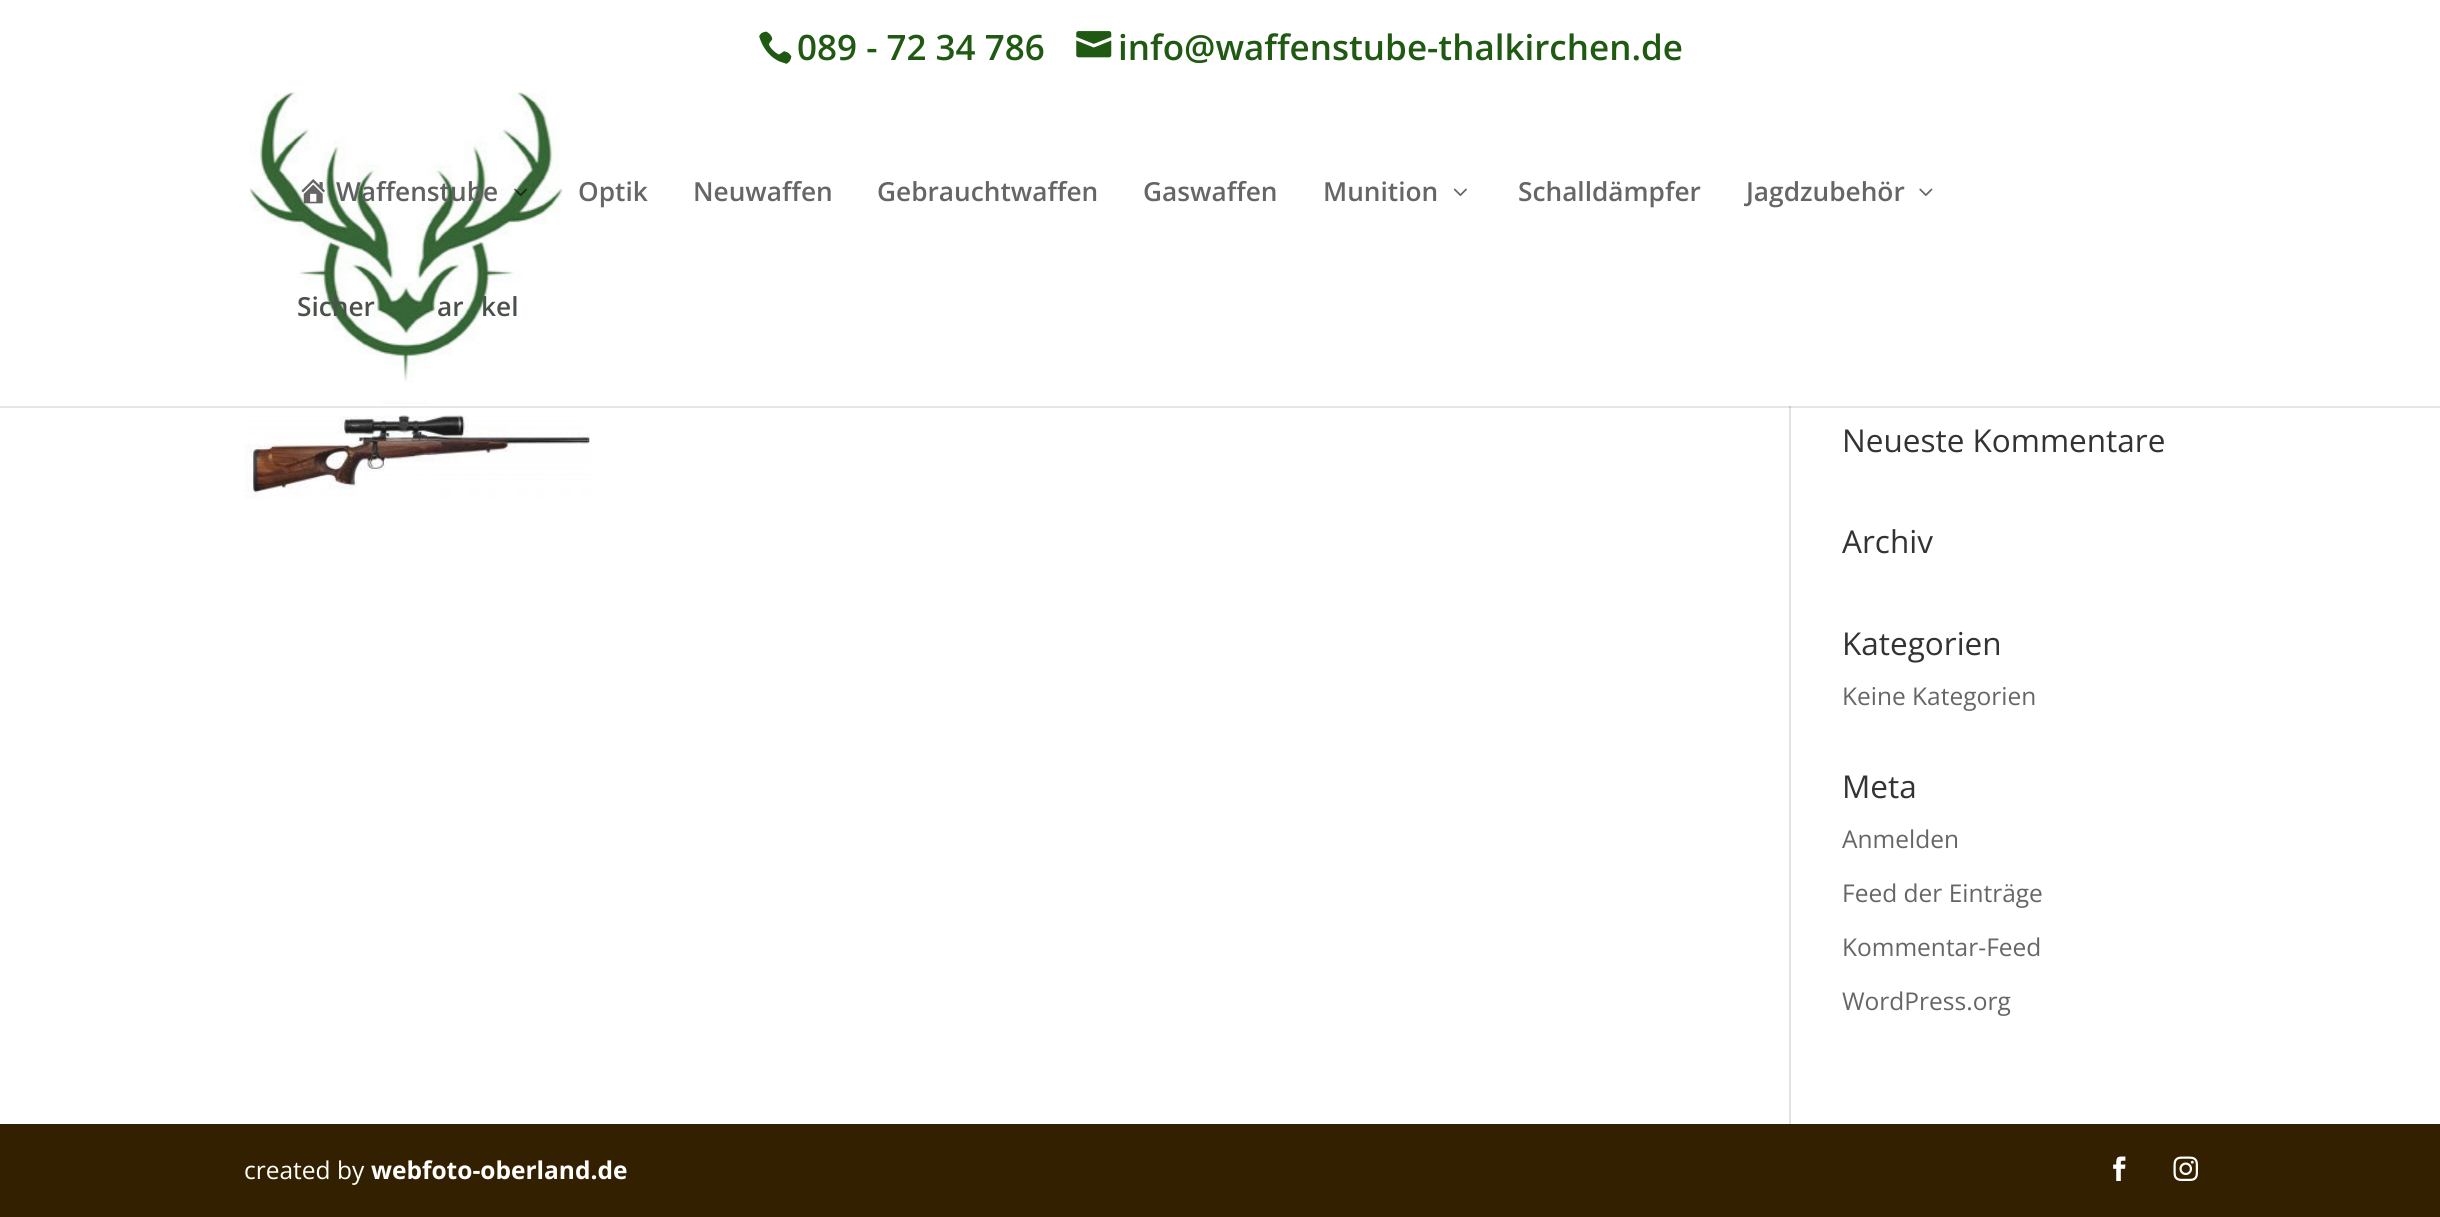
import math
import cairo

surface = cairo.ImageSurface(cairo.FORMAT_RGB24, 2440, 1217)
cr = cairo.Context(surface)
options = cairo.FontOptions()
options.set_hint_metrics(cairo.HINT_METRICS_OFF)
options.set_hint_style(cairo.HINT_STYLE_NONE)
cr.set_font_options(options)
cr.set_miter_limit(4)


def rgb(code):
    cr.set_source_rgb(*(v / 255 for v in bytes.fromhex(code[-6:])))


def image(path, x, y, w, h):
    cr.save()
    cr.set_source_surface(cairo.ImageSurface.create_from_png(path), x, y)
    cr.rectangle(x, y, w, h)
    cr.fill()
    cr.restore()


rgb("#ffffff")
cr.paint()
rgb("#e6e6e6")
cr.rectangle(0, 406, 2440, 2)
cr.fill()
image("img/1.png", 759, 31, 33, 33)
image("img/2.png", 1076, 31, 36, 27)
image("img/3.png", 250, 92, 313, 312)
image("img/4.png", 301, 179, 24, 25)
image("img/5.png", 514, 188, 14, 8)
image("img/6.png", 1453, 188, 14, 8)
image("img/7.png", 1919, 188, 14, 8)
rgb("#e2e2e2")
cr.rectangle(1789, 408, 2, 716)
cr.fill()
rgb("#cbcbcb")
cr.rectangle(1789, 406, 2, 2)
cr.fill()
image("img/8.png", 245, 415, 346, 84)
rgb("#332000")
cr.rectangle(0, 1124, 2440, 93)
cr.fill()
image("img/9.png", 2113, 1156, 13, 25)
image("img/10.png", 2173, 1156, 25, 25)
cr.select_font_face("Open Sans SemiBold")
cr.set_font_size(35)
rgb("#1f5912")
cr.move_to(797, 60)
cr.show_text("089 - 72 34 786")
cr.move_to(1118, 60)
cr.show_text("info@waffenstube-thalkirchen.de")
cr.set_font_size(26.25)
rgb("#5f605f")
cr.move_to(336, 201)
cr.show_text("Waffenstube")
rgb("#666666")
for x, y, s in [
    (578, 201, "Optik"),
    (693, 201, "Neuwaffen"),
    (877, 201, "Gebrauchtwaffen"),
    (1143, 201, "Gaswaffen"),
    (1323, 201, "Munition"),
    (1518, 201, "Schalldämpfer"),
    (1746, 201, "Jagdzubehör"),
]:
    cr.move_to(x, y)
    cr.show_text(s)
rgb("#4a514a")
for x, y, s in [
    (297, 316, "Sicher"),
    (437, 316, "ar"),
    (481, 316, "kel"),
]:
    cr.move_to(x, y)
    cr.show_text(s)
cr.select_font_face("Open Sans")
cr.set_font_size(31.5)
rgb("#333333")
for x, y, s in [
    (1842, 452, "Neueste Kommentare"),
    (1842, 553, "Archiv"),
    (1842, 655, "Kategorien"),
]:
    cr.move_to(x, y)
    cr.show_text(s)
cr.set_font_size(24.5)
rgb("#666666")
cr.move_to(1842, 705)
cr.show_text("Keine Kategorien")
cr.set_font_size(31.5)
rgb("#333333")
cr.move_to(1842, 798)
cr.show_text("Meta")
cr.set_font_size(24.5)
rgb("#666666")
for x, y, s in [
    (1842, 848, "Anmelden"),
    (1842, 902, "Feed der Einträge"),
    (1842, 956, "Kommentar-Feed"),
    (1842, 1010, "WordPress.org"),
]:
    cr.move_to(x, y)
    cr.show_text(s)
rgb("#ffffff")
cr.move_to(244, 1179)
cr.show_text("created by")
cr.select_font_face("Open Sans", cairo.FONT_SLANT_NORMAL, cairo.FONT_WEIGHT_BOLD)
cr.move_to(371, 1179)
cr.show_text("webfoto-oberland.de")
surface.write_to_png("page.png")
